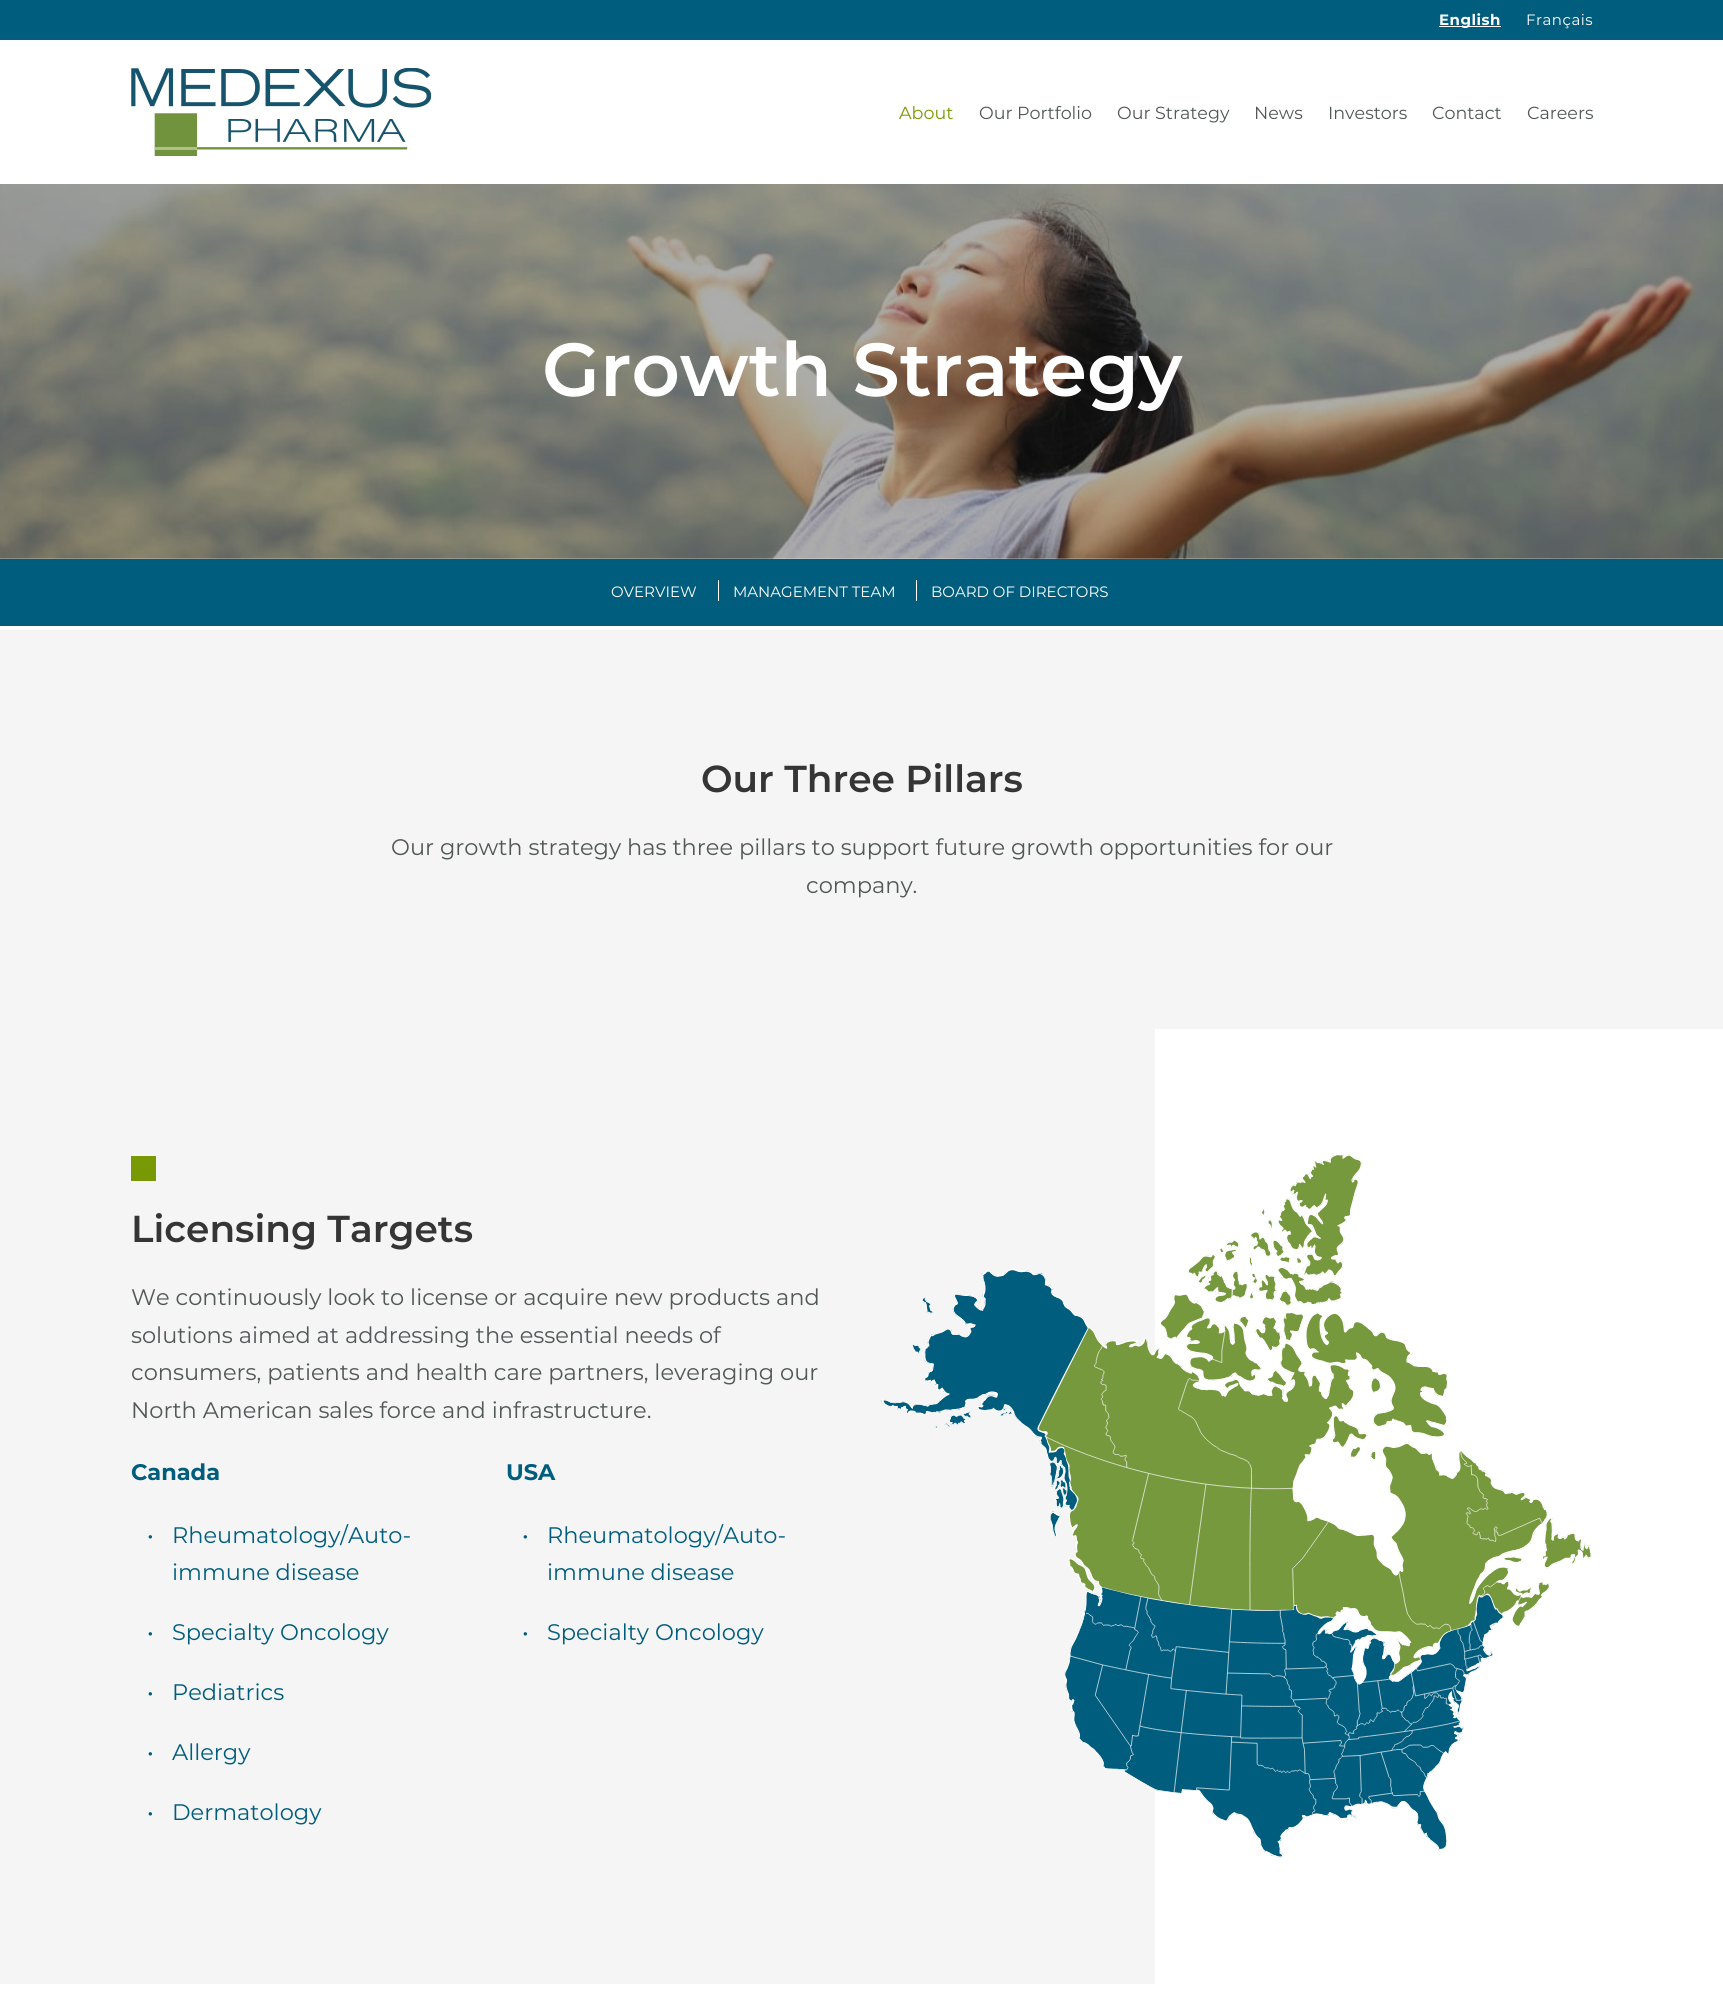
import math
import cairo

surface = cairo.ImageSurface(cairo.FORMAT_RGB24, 1723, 2009)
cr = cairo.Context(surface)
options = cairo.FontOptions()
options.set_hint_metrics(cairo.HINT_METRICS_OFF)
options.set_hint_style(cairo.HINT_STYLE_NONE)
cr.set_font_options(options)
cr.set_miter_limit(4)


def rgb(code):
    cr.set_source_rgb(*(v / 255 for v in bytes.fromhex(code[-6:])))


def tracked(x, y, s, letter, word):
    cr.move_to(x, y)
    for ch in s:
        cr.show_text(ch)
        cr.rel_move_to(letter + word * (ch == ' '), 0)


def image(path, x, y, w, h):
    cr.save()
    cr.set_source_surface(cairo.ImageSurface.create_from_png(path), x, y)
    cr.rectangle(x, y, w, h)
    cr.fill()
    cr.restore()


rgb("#ffffff")
cr.paint()
rgb("#005d7e")
cr.rectangle(0, 0, 1723, 40)
cr.fill()
rgb("#ffffff")
cr.rectangle(1439, 26, 62, 1)
cr.fill()
image("img/1.png", 131, 68, 300, 88)
image("img/2.png", 0, 184, 1723, 375)
for x, y, w, h, color in [
    (0, 559, 1723, 67, "#005d7e"),
    (718, 580, 1, 21, "#ffffff"),
    (916, 580, 1, 21, "#ffffff"),
    (0, 630, 1723, 399, "#f5f5f5"),
    (0, 1029, 1155, 955, "#f5f5f5"),
    (131, 1156, 25, 25, "#789904"),
]:
    rgb(color)
    cr.rectangle(x, y, w, h)
    cr.fill()
image("img/3.png", 881, 1154, 711, 704)
cr.select_font_face("Montserrat", cairo.FONT_SLANT_NORMAL, cairo.FONT_WEIGHT_BOLD)
cr.set_font_size(15)
rgb("#ffffff")
tracked(1439, 25, "English", 0.5, 0)
cr.select_font_face("Montserrat")
tracked(1526, 25, "Français", 0.5, 0)
cr.set_font_size(17.5)
rgb("#789904")
cr.move_to(899, 119)
cr.show_text("About")
rgb("#525758")
for x, y, s in [
    (979, 119, "Our Portfolio"),
    (1117, 119, "Our Strategy"),
    (1254, 119, "News"),
    (1328, 119, "Investors"),
    (1432, 119, "Contact"),
    (1527, 119, "Careers"),
]:
    cr.move_to(x, y)
    cr.show_text(s)
cr.select_font_face("Montserrat SemiBold")
cr.set_font_size(75)
rgb("#ffffff")
cr.move_to(542, 396)
cr.show_text("Growth Strategy")
cr.select_font_face("Montserrat")
cr.set_font_size(15)
for x, y, s in [
    (611, 597, "OVERVIEW"),
    (733, 597, "MANAGEMENT TEAM"),
    (931, 597, "BOARD OF DIRECTORS"),
]:
    cr.move_to(x, y)
    cr.show_text(s)
cr.select_font_face("Montserrat SemiBold")
cr.set_font_size(37.5)
rgb("#353535")
cr.move_to(701, 792)
cr.show_text("Our Three Pillars")
cr.select_font_face("Montserrat")
cr.set_font_size(22.5)
rgb("#525758")
cr.move_to(391, 855)
cr.show_text("Our growth strategy has three pillars to support future growth opportunities for our")
cr.move_to(806, 893)
cr.show_text("company.")
cr.select_font_face("Montserrat SemiBold")
cr.set_font_size(37.5)
rgb("#353535")
cr.move_to(131, 1242)
cr.show_text("Licensing Targets")
cr.select_font_face("Montserrat")
cr.set_font_size(22.5)
rgb("#525758")
for x, y, s in [
    (131, 1305, "We continuously look to license or acquire new products and"),
    (131, 1343, "solutions aimed at addressing the essential needs of"),
    (131, 1380, "consumers, patients and health care partners, leveraging our"),
    (131, 1418, "North American sales force and infrastructure."),
]:
    cr.move_to(x, y)
    cr.show_text(s)
cr.select_font_face("Montserrat", cairo.FONT_SLANT_NORMAL, cairo.FONT_WEIGHT_BOLD)
rgb("#005d7e")
cr.move_to(131, 1480)
cr.show_text("Canada")
cr.select_font_face("Montserrat")
for x, y, s in [
    (147, 1543, "•"),
    (172, 1543, "Rheumatology/Auto-"),
    (172, 1580, "immune disease"),
    (147, 1640, "•"),
    (172, 1640, "Specialty Oncology"),
    (147, 1700, "•"),
    (172, 1700, "Pediatrics"),
    (147, 1760, "•"),
    (172, 1760, "Allergy"),
    (147, 1820, "•"),
    (172, 1820, "Dermatology"),
]:
    cr.move_to(x, y)
    cr.show_text(s)
cr.select_font_face("Montserrat", cairo.FONT_SLANT_NORMAL, cairo.FONT_WEIGHT_BOLD)
cr.move_to(506, 1480)
cr.show_text("USA")
cr.select_font_face("Montserrat")
for x, y, s in [
    (522, 1543, "•"),
    (547, 1543, "Rheumatology/Auto-"),
    (547, 1580, "immune disease"),
    (522, 1640, "•"),
    (547, 1640, "Specialty Oncology"),
]:
    cr.move_to(x, y)
    cr.show_text(s)
surface.write_to_png("page.png")
